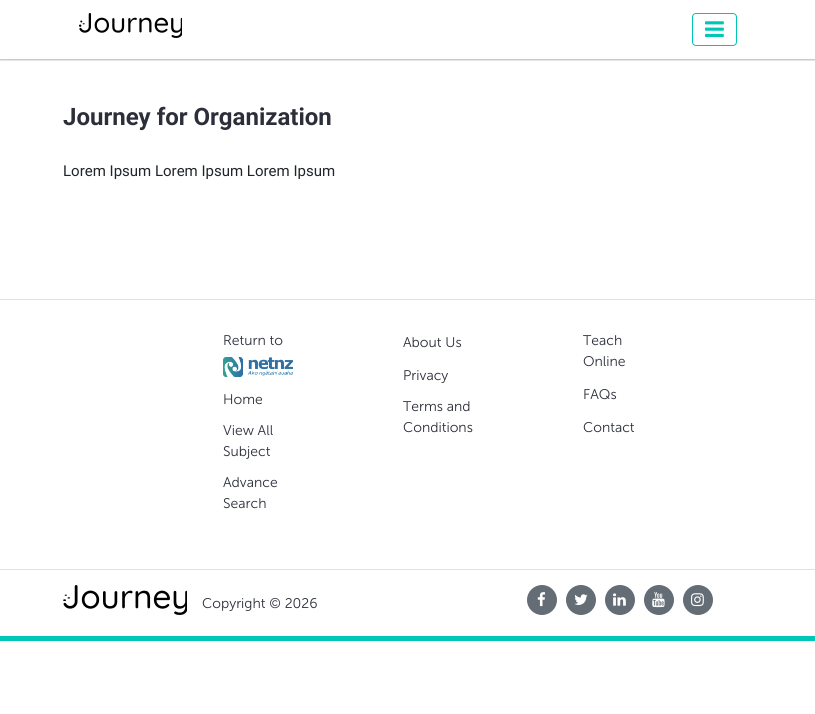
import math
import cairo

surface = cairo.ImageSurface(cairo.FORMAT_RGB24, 815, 714)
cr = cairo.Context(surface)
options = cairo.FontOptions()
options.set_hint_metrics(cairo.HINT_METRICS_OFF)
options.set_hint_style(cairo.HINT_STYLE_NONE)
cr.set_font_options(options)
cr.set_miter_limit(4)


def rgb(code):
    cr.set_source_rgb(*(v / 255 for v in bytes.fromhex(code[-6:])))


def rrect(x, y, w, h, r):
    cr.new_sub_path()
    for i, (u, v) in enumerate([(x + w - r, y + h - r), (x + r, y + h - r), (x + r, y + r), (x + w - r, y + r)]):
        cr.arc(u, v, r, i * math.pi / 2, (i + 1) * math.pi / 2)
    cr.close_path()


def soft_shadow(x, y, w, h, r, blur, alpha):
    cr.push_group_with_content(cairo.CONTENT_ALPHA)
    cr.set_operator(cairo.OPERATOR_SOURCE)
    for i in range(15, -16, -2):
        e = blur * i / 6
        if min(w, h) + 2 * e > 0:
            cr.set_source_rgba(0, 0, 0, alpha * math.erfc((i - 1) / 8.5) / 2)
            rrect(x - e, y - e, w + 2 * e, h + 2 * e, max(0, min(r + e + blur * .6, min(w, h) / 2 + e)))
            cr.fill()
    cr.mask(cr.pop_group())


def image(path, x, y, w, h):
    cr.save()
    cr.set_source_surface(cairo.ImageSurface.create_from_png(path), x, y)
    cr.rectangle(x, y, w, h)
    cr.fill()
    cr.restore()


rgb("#ffffff")
cr.paint()
cr.save()
cr.rectangle(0, 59, 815, 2)
cr.clip()
rgb("#000000")
soft_shadow(0, 1, 815, 59, 0, 1, 0.3)
cr.restore()
image("img/1.png", 79, 13, 103, 25)
rrect(692.5, 13.5, 44, 32, 3.5)
rgb("#00c6b7")
cr.set_line_width(1)
cr.stroke()
image("img/2.png", 705, 21, 19, 16)
rgb("#dee2e6")
cr.rectangle(0, 299, 815, 1)
cr.fill()
image("img/3.png", 223, 357, 70, 20)
cr.rectangle(0, 569, 815, 1)
cr.fill()
rgb("#00c6b7")
cr.rectangle(0, 636, 815, 5)
cr.fill()
image("img/4.png", 63, 585, 124, 30)
rgb("#646d75")
cr.arc(542, 600, 15, 0, 2 * math.pi)
cr.fill()
image("img/5.png", 537, 592, 9, 15)
cr.arc(581, 600, 15, 0, 2 * math.pi)
cr.fill()
image("img/6.png", 574, 594, 14, 11)
cr.arc(620, 600, 15, 0, 2 * math.pi)
cr.fill()
image("img/7.png", 613, 593, 13, 13)
cr.arc(659, 600, 15, 0, 2 * math.pi)
cr.fill()
image("img/8.png", 652, 592, 13, 16)
cr.arc(698, 600, 15, 0, 2 * math.pi)
cr.fill()
image("img/9.png", 691, 593, 13, 14)
cr.select_font_face("Roboto", cairo.FONT_SLANT_NORMAL, cairo.FONT_WEIGHT_BOLD)
cr.set_font_size(24)
rgb("#2c2f3a")
cr.move_to(63, 125)
cr.show_text("Journey for Organization")
cr.select_font_face("Roboto")
cr.set_font_size(15)
rgb("#212529")
cr.move_to(63, 176)
cr.show_text("Lorem Ipsum Lorem Ipsum Lorem Ipsum")
cr.select_font_face("Museo Sans Light")
cr.set_font_size(14)
rgb("#2c2f3a")
for x, y, s in [
    (223, 345, "Return to"),
    (223, 404, "Home"),
    (223, 435, "View All"),
    (223, 456, "Subject"),
    (223, 487, "Advance"),
    (223, 508, "Search"),
    (403, 347, "About Us"),
    (403, 380, "Privacy"),
    (403, 411, "Terms and"),
    (403, 432, "Conditions"),
    (583, 345, "Teach"),
    (583, 366, "Online"),
    (583, 399, "FAQs"),
    (583, 432, "Contact"),
    (202, 608, "Copyright © 2026"),
]:
    cr.move_to(x, y)
    cr.show_text(s)
surface.write_to_png("page.png")
